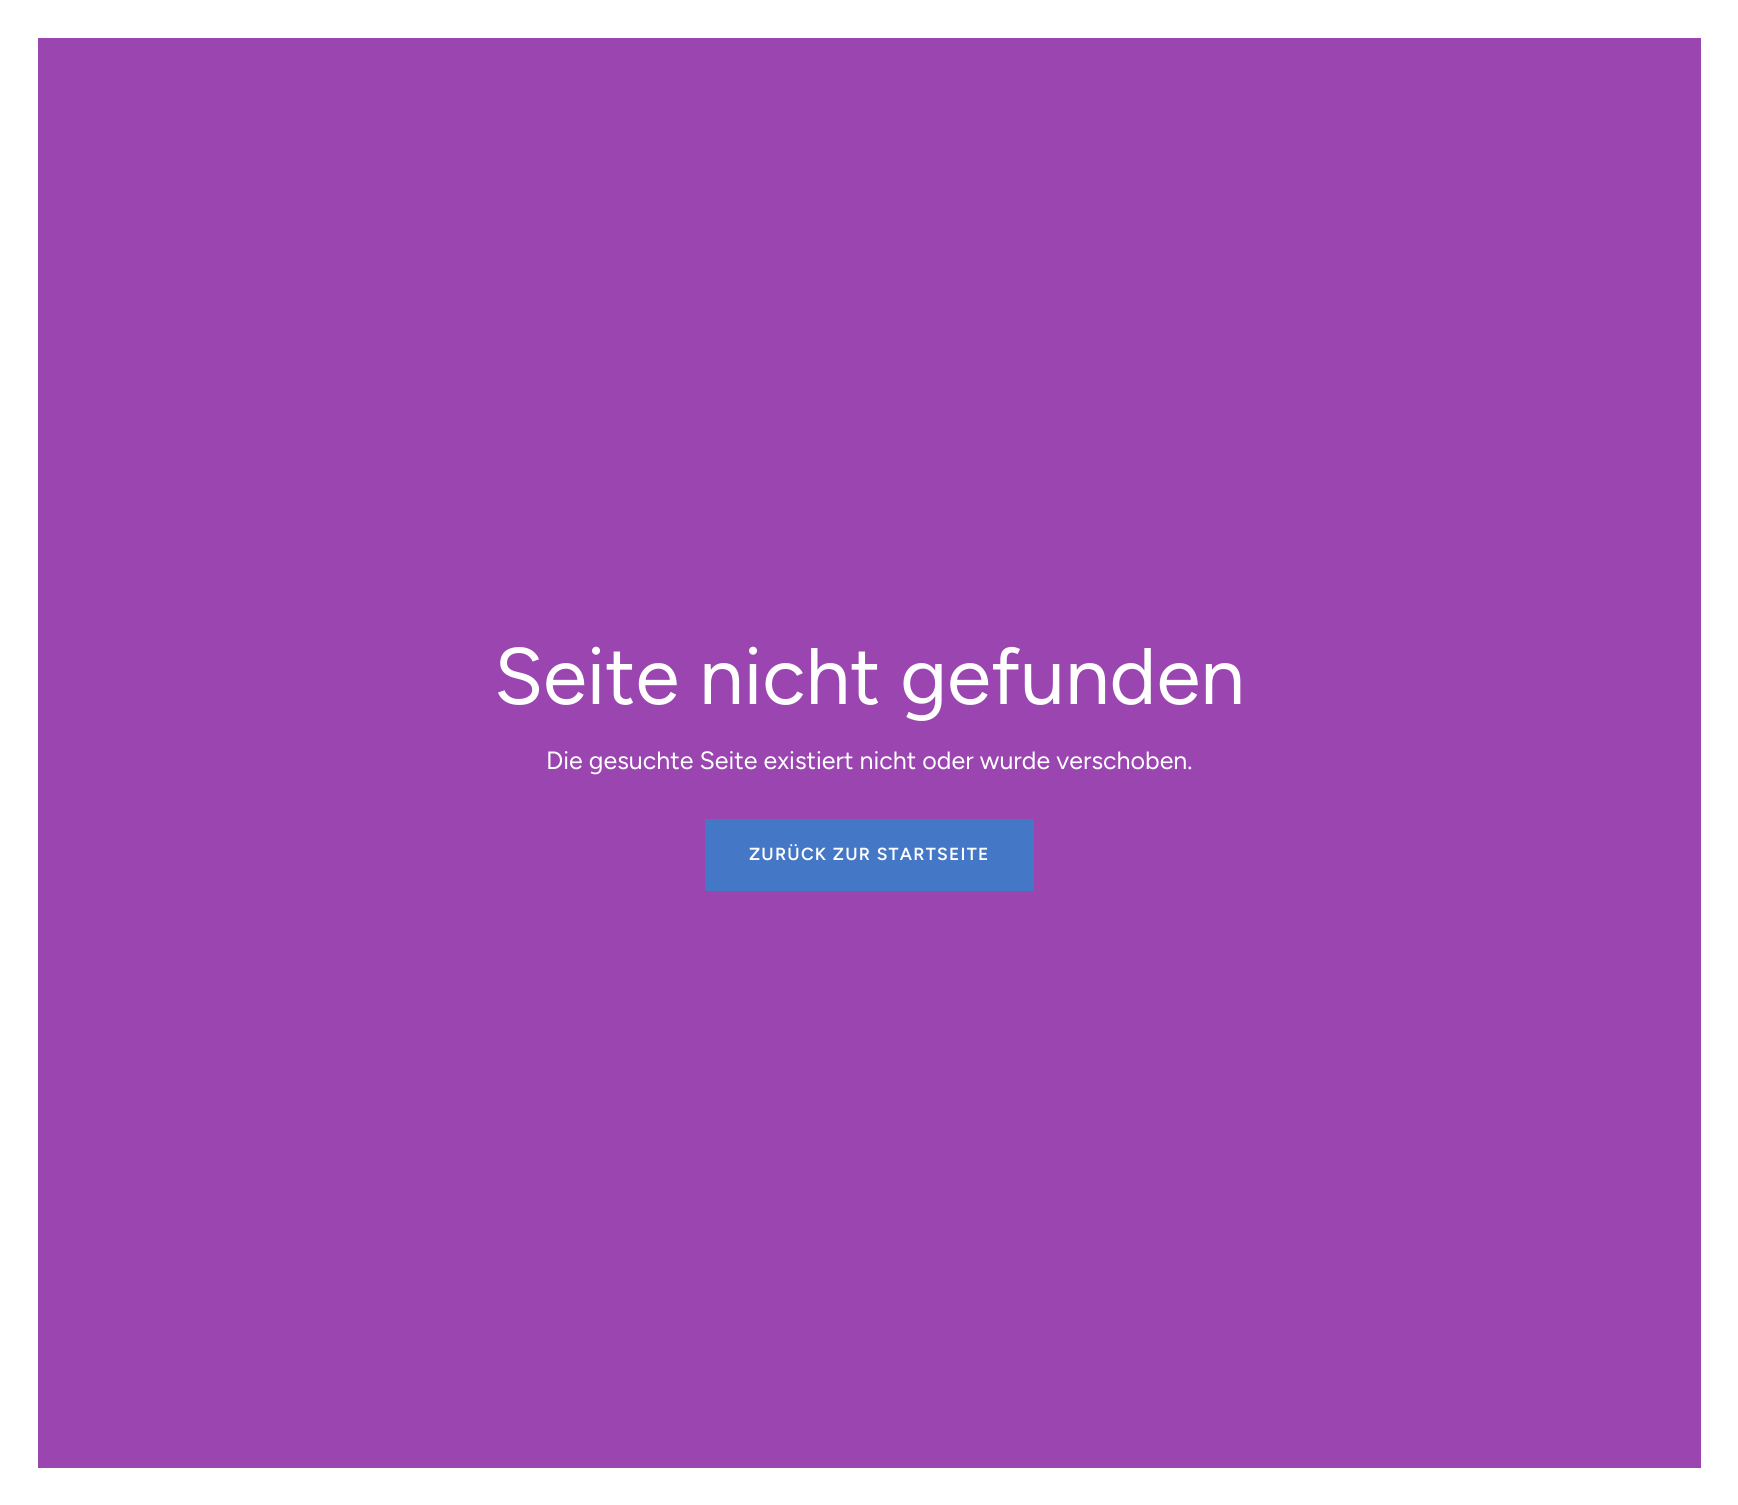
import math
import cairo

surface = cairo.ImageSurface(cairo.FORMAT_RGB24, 1738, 1505)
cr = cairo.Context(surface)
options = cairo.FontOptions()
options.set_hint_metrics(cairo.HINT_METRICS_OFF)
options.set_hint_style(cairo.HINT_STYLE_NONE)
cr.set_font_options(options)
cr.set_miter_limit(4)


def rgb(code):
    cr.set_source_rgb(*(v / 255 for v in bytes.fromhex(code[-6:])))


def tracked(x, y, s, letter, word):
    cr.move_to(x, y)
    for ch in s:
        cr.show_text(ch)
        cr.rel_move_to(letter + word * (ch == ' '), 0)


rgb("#ffffff")
cr.paint()
rgb("#9a45b0")
cr.rectangle(38, 38, 1663, 1430)
cr.fill()
rgb("#4478c7")
cr.rectangle(705, 819, 329, 72)
cr.fill()
cr.select_font_face("Figtree")
cr.set_font_size(80)
rgb("#ffffff")
cr.move_to(494, 704)
cr.show_text("Seite nicht gefunden")
cr.set_font_size(25)
cr.move_to(546, 769)
cr.show_text("Die gesuchte Seite existiert nicht oder wurde verschoben.")
cr.select_font_face("Figtree SemiBold")
cr.set_font_size(17.5)
tracked(749, 860, "ZURÜCK ZUR STARTSEITE", 1.25, 0)
surface.write_to_png("page.png")
